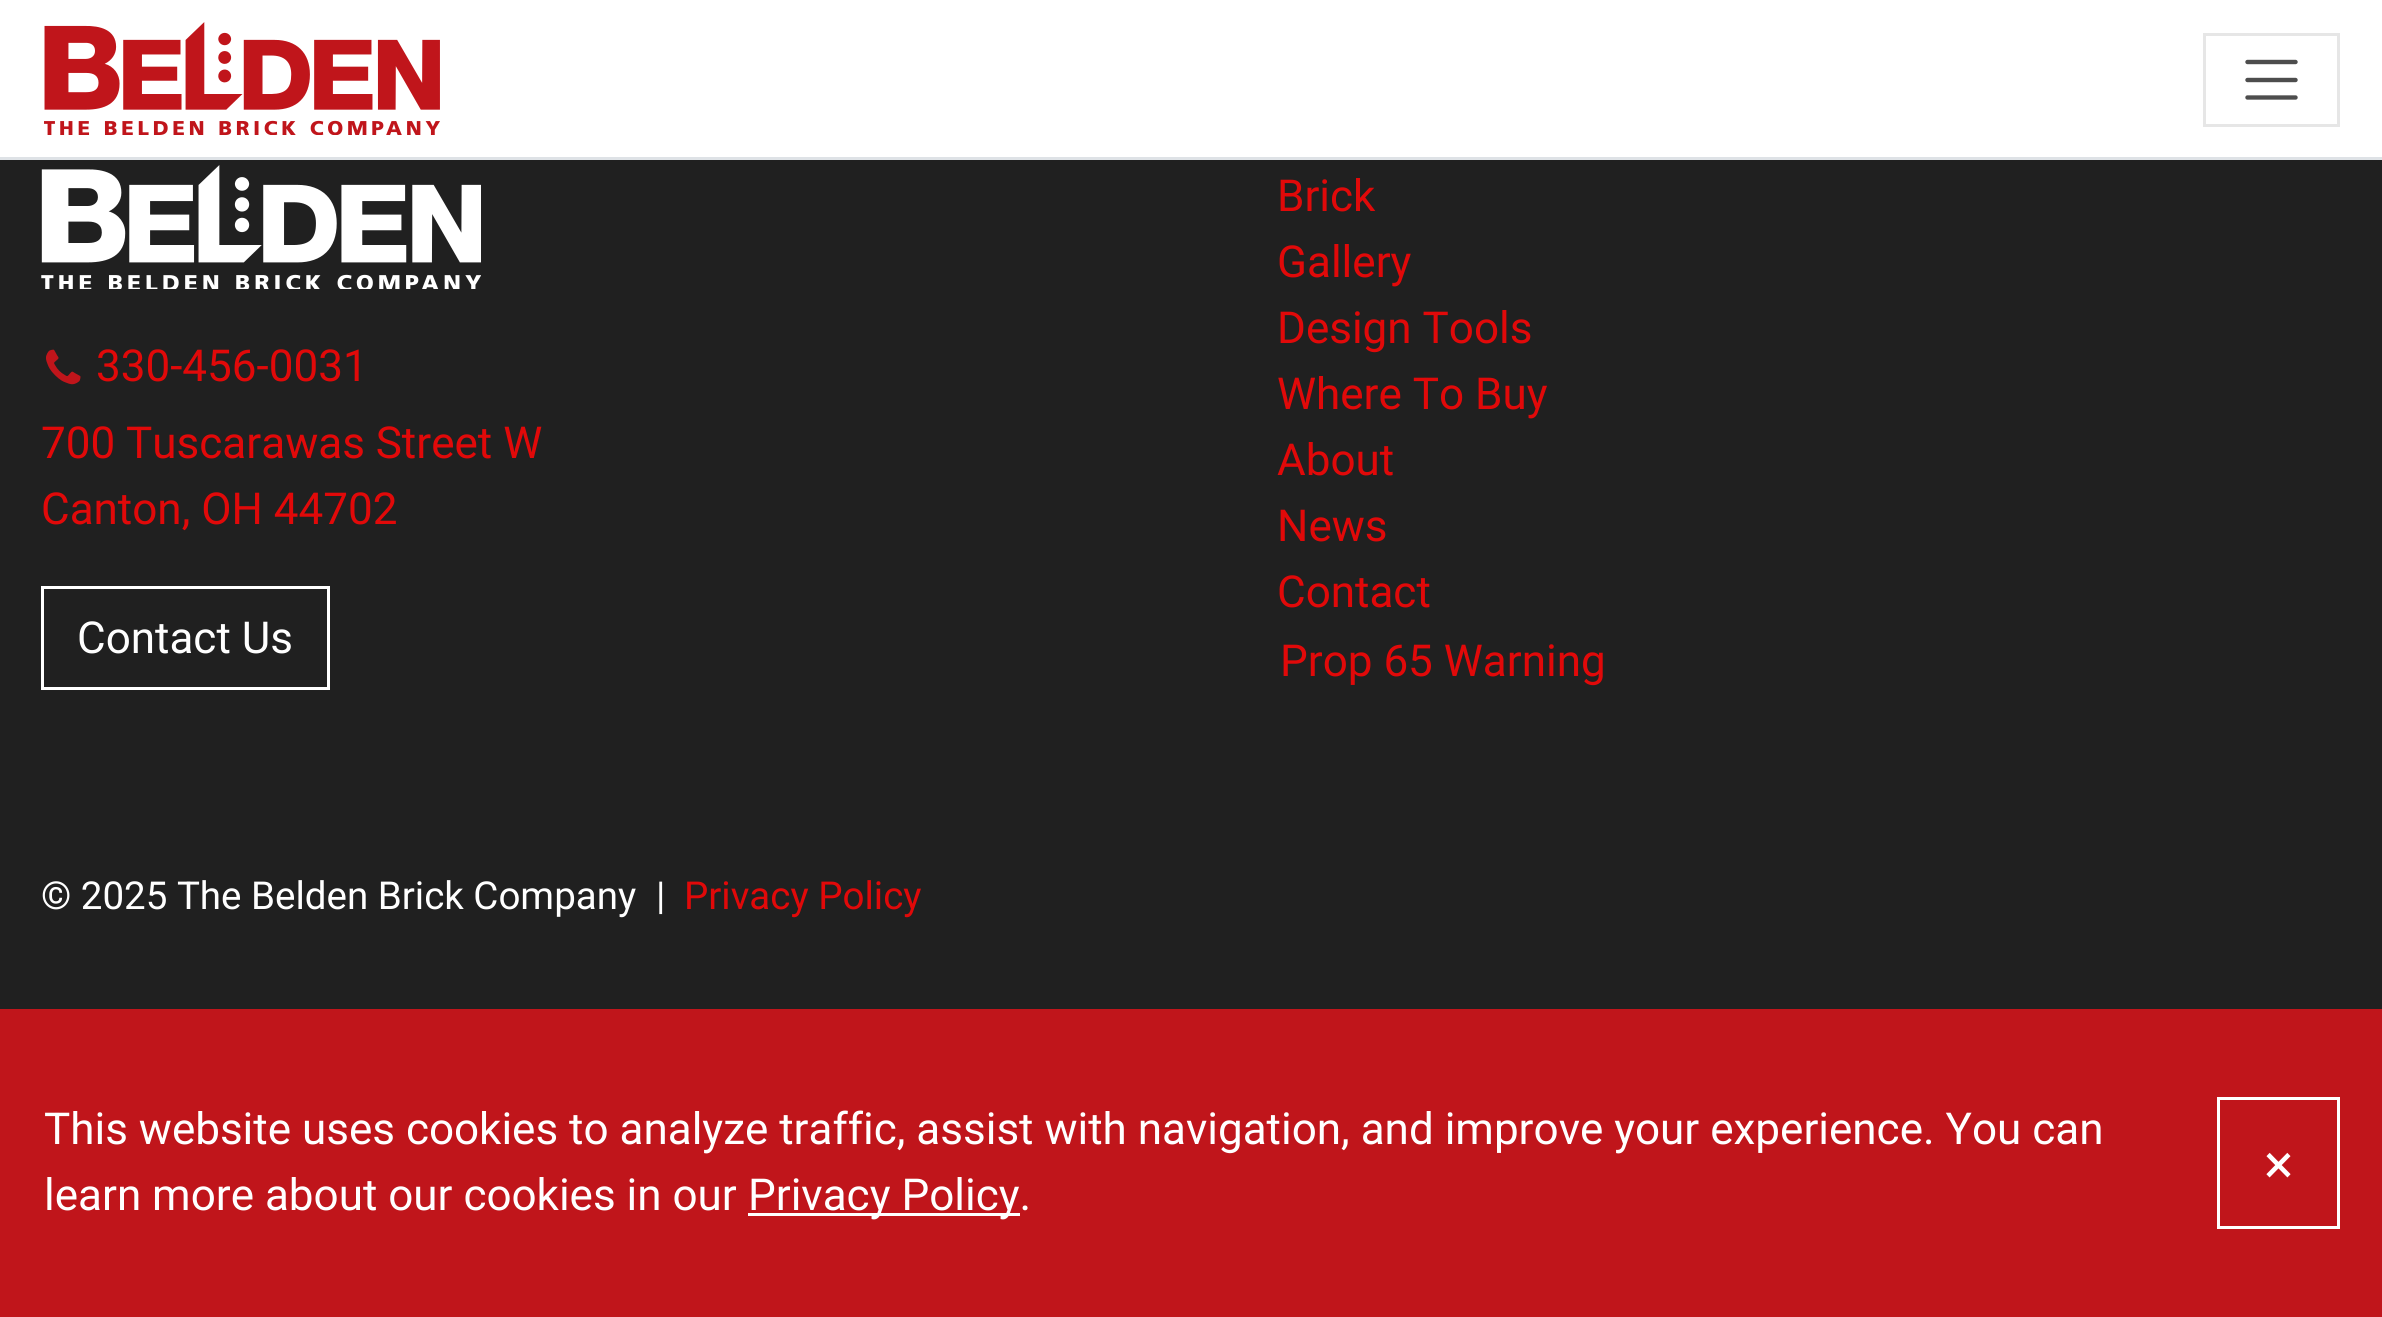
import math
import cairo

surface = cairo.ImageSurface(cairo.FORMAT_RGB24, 2382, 1317)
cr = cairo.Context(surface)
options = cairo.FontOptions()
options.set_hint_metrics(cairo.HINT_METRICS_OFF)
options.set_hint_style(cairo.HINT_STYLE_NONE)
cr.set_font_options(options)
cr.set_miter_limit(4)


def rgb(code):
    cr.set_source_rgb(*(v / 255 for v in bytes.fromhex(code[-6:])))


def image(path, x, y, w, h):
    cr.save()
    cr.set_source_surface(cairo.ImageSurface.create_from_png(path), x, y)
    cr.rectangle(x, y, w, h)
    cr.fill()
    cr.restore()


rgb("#202020")
cr.paint()
rgb("#ffffff")
cr.rectangle(0, 0, 2382, 157)
cr.fill()
rgb("#dee2e6")
cr.rectangle(0, 157, 2382, 3)
cr.fill()
image("img/1.png", 44, 22, 396, 113)
cr.rectangle(2204.5, 34.5, 134, 91)
rgb("#e6e6e6")
cr.set_line_width(3)
cr.stroke()
cr.new_path()
cr.move_to(2247.5, 62)
cr.line_to(2295.5, 62)
cr.move_to(2247.5, 80)
cr.line_to(2295.5, 80)
cr.move_to(2247.5, 97.5)
cr.line_to(2295.5, 97.5)
rgb("#4d4d4d")
cr.set_line_width(4.4)
cr.set_line_cap(cairo.LINE_CAP_ROUND)
cr.stroke()
image("img/2.png", 41, 165, 440, 124)
image("img/3.png", 46, 349, 35, 36)
cr.rectangle(42.5, 587.5, 286, 101)
rgb("#ffffff")
cr.set_line_width(3)
cr.set_line_cap(cairo.LINE_CAP_BUTT)
cr.stroke()
rgb("#c0151b")
cr.rectangle(0, 1009, 2382, 308)
cr.fill()
rgb("#ffffff")
cr.rectangle(748, 1213, 272, 3)
cr.fill()
cr.rectangle(2218.5, 1098.5, 120, 129)
cr.stroke()
cr.select_font_face("Roboto")
cr.set_font_size(44)
rgb("#e10909")
for x, y, s in [
    (96, 381, "330-456-0031"),
    (41, 458, "700 Tuscarawas Street W"),
    (41, 524, "Canton, OH 44702"),
]:
    cr.move_to(x, y)
    cr.show_text(s)
rgb("#ffffff")
cr.move_to(77, 653)
cr.show_text("Contact Us")
cr.set_font_size(38.5)
cr.move_to(41, 909)
cr.show_text("© 2025 The Belden Brick Company")
cr.move_to(656, 909)
cr.show_text("|")
rgb("#e10909")
cr.move_to(684, 909)
cr.show_text("Privacy Policy")
cr.set_font_size(44)
for x, y, s in [
    (1277, 211, "Brick"),
    (1277, 277, "Gallery"),
    (1277, 343, "Design Tools"),
    (1277, 409, "Where To Buy"),
    (1277, 475, "About"),
    (1277, 541, "News"),
    (1277, 607, "Contact"),
    (1280, 676, "Prop 65 Warning"),
]:
    cr.move_to(x, y)
    cr.show_text(s)
rgb("#ffffff")
for x, y, s in [
    (44, 1144, "This website uses cookies to analyze traffic, assist with navigation, and improve your experience. You can"),
    (44, 1210, "learn more about our cookies in our"),
    (748, 1210, "Privacy Policy."),
]:
    cr.move_to(x, y)
    cr.show_text(s)
cr.set_font_size(55)
cr.move_to(2264, 1183)
cr.show_text("×")
surface.write_to_png("page.png")
